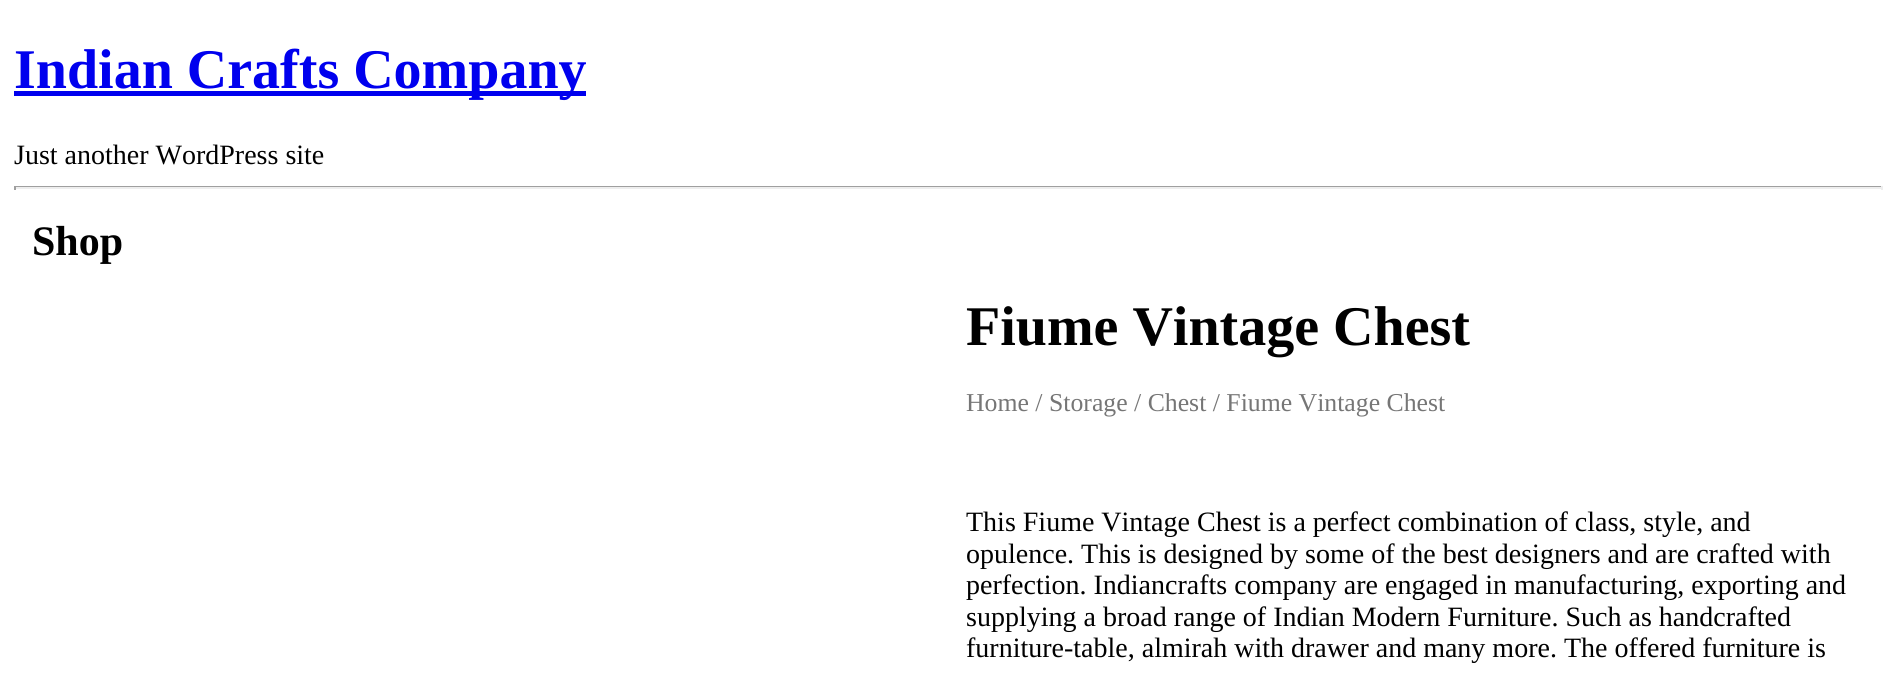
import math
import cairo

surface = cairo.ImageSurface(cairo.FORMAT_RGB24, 1897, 681)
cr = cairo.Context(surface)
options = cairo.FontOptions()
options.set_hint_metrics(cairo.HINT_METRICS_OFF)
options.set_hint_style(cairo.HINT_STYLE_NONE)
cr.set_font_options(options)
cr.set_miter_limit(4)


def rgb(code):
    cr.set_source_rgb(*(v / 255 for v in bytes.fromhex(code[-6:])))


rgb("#ffffff")
cr.paint()
for x, y, w, h, color in [
    (14, 91, 572, 5, "#0000ee"),
    (14, 186, 1869, 1, "#9f9f9f"),
    (1881, 186, 2, 4, "#eeeeee"),
    (14, 187, 1869, 2, "#eeeeee"),
    (14, 186, 2, 4, "#9f9f9f"),
]:
    rgb(color)
    cr.rectangle(x, y, w, h)
    cr.fill()
cr.select_font_face("Liberation Serif", cairo.FONT_SLANT_NORMAL, cairo.FONT_WEIGHT_BOLD)
cr.set_font_size(56)
rgb("#0000ee")
cr.move_to(14, 88)
cr.show_text("Indian Crafts Company")
cr.select_font_face("Liberation Serif")
cr.set_font_size(28)
rgb("#000000")
cr.move_to(14, 164)
cr.show_text("Just another WordPress site")
cr.select_font_face("Liberation Serif", cairo.FONT_SLANT_NORMAL, cairo.FONT_WEIGHT_BOLD)
cr.set_font_size(42)
cr.move_to(32, 255)
cr.show_text("Shop")
cr.set_font_size(56)
cr.move_to(966, 345)
cr.show_text("Fiume Vintage Chest")
cr.select_font_face("Liberation Serif")
cr.set_font_size(25.75)
rgb("#767676")
cr.move_to(966, 411)
cr.show_text("Home / Storage / Chest / Fiume Vintage Chest")
cr.set_font_size(28)
rgb("#000000")
for x, y, s in [
    (966, 531, "This Fiume Vintage Chest is a perfect combination of class, style, and"),
    (966, 563, "opulence. This is designed by some of the best designers and are crafted with"),
    (966, 594, "perfection. Indiancrafts company are engaged in manufacturing, exporting and"),
    (966, 626, "supplying a broad range of Indian Modern Furniture. Such as handcrafted"),
    (966, 657, "furniture-table, almirah with drawer and many more. The offered furniture is"),
]:
    cr.move_to(x, y)
    cr.show_text(s)
surface.write_to_png("page.png")
